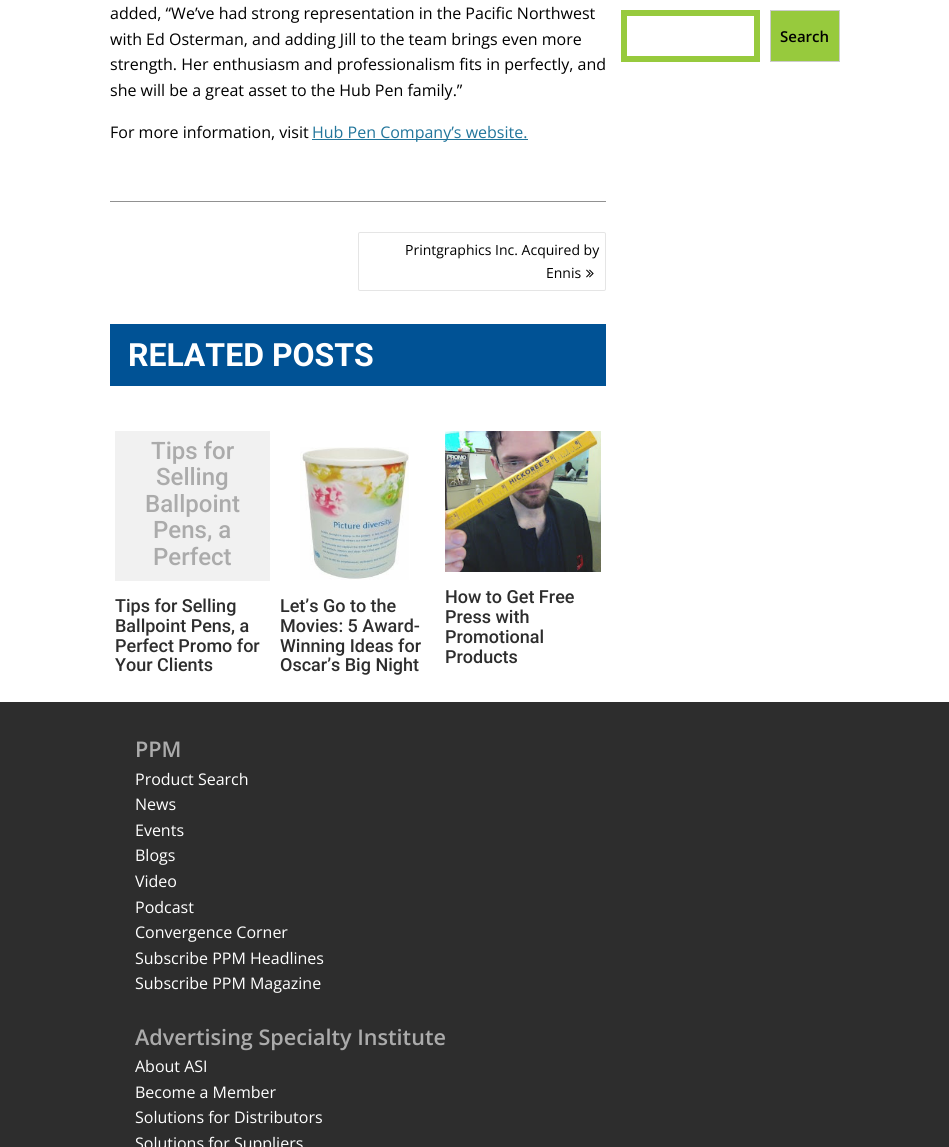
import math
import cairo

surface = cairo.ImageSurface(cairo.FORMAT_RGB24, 949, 1147)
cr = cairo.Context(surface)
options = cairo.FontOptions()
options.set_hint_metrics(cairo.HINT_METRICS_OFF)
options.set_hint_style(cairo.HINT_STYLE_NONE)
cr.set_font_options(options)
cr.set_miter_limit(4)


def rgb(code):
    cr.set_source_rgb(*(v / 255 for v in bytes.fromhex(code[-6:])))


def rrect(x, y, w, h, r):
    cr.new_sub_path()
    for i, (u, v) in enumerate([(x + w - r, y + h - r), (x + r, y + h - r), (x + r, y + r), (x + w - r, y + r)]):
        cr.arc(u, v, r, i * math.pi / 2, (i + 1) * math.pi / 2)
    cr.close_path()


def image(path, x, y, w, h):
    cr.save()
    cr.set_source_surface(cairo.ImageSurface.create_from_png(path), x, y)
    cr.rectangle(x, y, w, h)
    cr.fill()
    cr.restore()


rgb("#ffffff")
cr.paint()
rgb("#919191")
cr.rectangle(110, 201, 496, 1)
cr.fill()
rgb("#21759b")
cr.rectangle(312, 139, 216, 1)
cr.fill()
rrect(358.5, 232.5, 247, 58, 1.5)
rgb("#e5e5e5")
cr.set_line_width(1)
cr.stroke()
image("img/1.png", 586, 269, 8, 9)
rgb("#005295")
cr.rectangle(110, 324, 496, 62)
cr.fill()
rgb("#f1f1f1")
cr.rectangle(115, 431, 155, 150)
cr.fill()
image("img/2.png", 300, 447, 109, 133)
image("img/3.png", 445, 431, 156, 141)
cr.rectangle(624, 13, 133, 46)
rgb("#97ca3d")
cr.set_line_width(6)
cr.stroke()
cr.rectangle(770.5, 10.5, 69, 51)
cr.fill_preserve()
rgb("#cccccc")
cr.set_line_width(1)
cr.stroke()
rgb("#2d2d2d")
cr.rectangle(0, 702, 949, 445)
cr.fill()
cr.select_font_face("Open Sans")
cr.set_font_size(16)
rgb("#000000")
for x, y, s in [
    (110, 19, "added, “We’ve had strong representation in the Pacific Northwest"),
    (110, 45, "with Ed Osterman, and adding Jill to the team brings even more"),
    (110, 70, "strength. Her enthusiasm and professionalism fits in perfectly, and"),
    (110, 96, "she will be a great asset to the Hub Pen family.”"),
    (110, 138, "For more information, visit"),
]:
    cr.move_to(x, y)
    cr.show_text(s)
rgb("#21759b")
cr.move_to(312, 138)
cr.show_text("Hub Pen Company’s website.")
cr.set_font_size(14)
rgb("#000000")
cr.move_to(405, 255)
cr.show_text("Printgraphics Inc. Acquired by")
cr.move_to(546, 278)
cr.show_text("Ennis")
cr.select_font_face("Roboto", cairo.FONT_SLANT_NORMAL, cairo.FONT_WEIGHT_BOLD)
cr.set_font_size(32)
rgb("#ffffff")
cr.move_to(128, 366)
cr.show_text("RELATED POSTS")
cr.select_font_face("Roboto Medium")
cr.set_font_size(24)
rgb("#ababab")
for x, y, s in [
    (151, 459, "Tips for"),
    (156, 485, "Selling"),
    (145, 512, "Ballpoint"),
    (153, 538, "Pens, a"),
    (153, 565, "Perfect"),
]:
    cr.move_to(x, y)
    cr.show_text(s)
cr.set_font_size(18)
rgb("#2d2d2d")
for x, y, s in [
    (115, 612, "Tips for Selling"),
    (115, 632, "Ballpoint Pens, a"),
    (115, 652, "Perfect Promo for"),
    (115, 671, "Your Clients"),
    (280, 612, "Let’s Go to the"),
    (280, 632, "Movies: 5 Award-"),
    (280, 652, "Winning Ideas for"),
    (280, 671, "Oscar’s Big Night"),
    (445, 603, "How to Get Free"),
    (445, 623, "Press with"),
    (445, 643, "Promotional"),
    (445, 663, "Products"),
]:
    cr.move_to(x, y)
    cr.show_text(s)
cr.select_font_face("Open Sans SemiBold")
cr.set_font_size(15)
rgb("#000000")
cr.move_to(780, 42)
cr.show_text("Search")
cr.set_font_size(21.6)
rgb("#ababab")
cr.move_to(135, 757)
cr.show_text("PPM")
cr.select_font_face("Open Sans")
cr.set_font_size(16)
rgb("#ffffff")
for x, y, s in [
    (135, 785, "Product Search"),
    (135, 810, "News"),
    (135, 836, "Events"),
    (135, 861, "Blogs"),
    (135, 887, "Video"),
    (135, 913, "Podcast"),
    (135, 938, "Convergence Corner"),
    (135, 964, "Subscribe PPM Headlines"),
    (135, 989, "Subscribe PPM Magazine"),
]:
    cr.move_to(x, y)
    cr.show_text(s)
cr.select_font_face("Open Sans SemiBold")
cr.set_font_size(21.6)
rgb("#ababab")
cr.move_to(135, 1045)
cr.show_text("Advertising Specialty Institute")
cr.select_font_face("Open Sans")
cr.set_font_size(16)
rgb("#ffffff")
for x, y, s in [
    (135, 1072, "About ASI"),
    (135, 1098, "Become a Member"),
    (135, 1123, "Solutions for Distributors"),
    (135, 1149, "Solutions for Suppliers"),
]:
    cr.move_to(x, y)
    cr.show_text(s)
surface.write_to_png("page.png")
